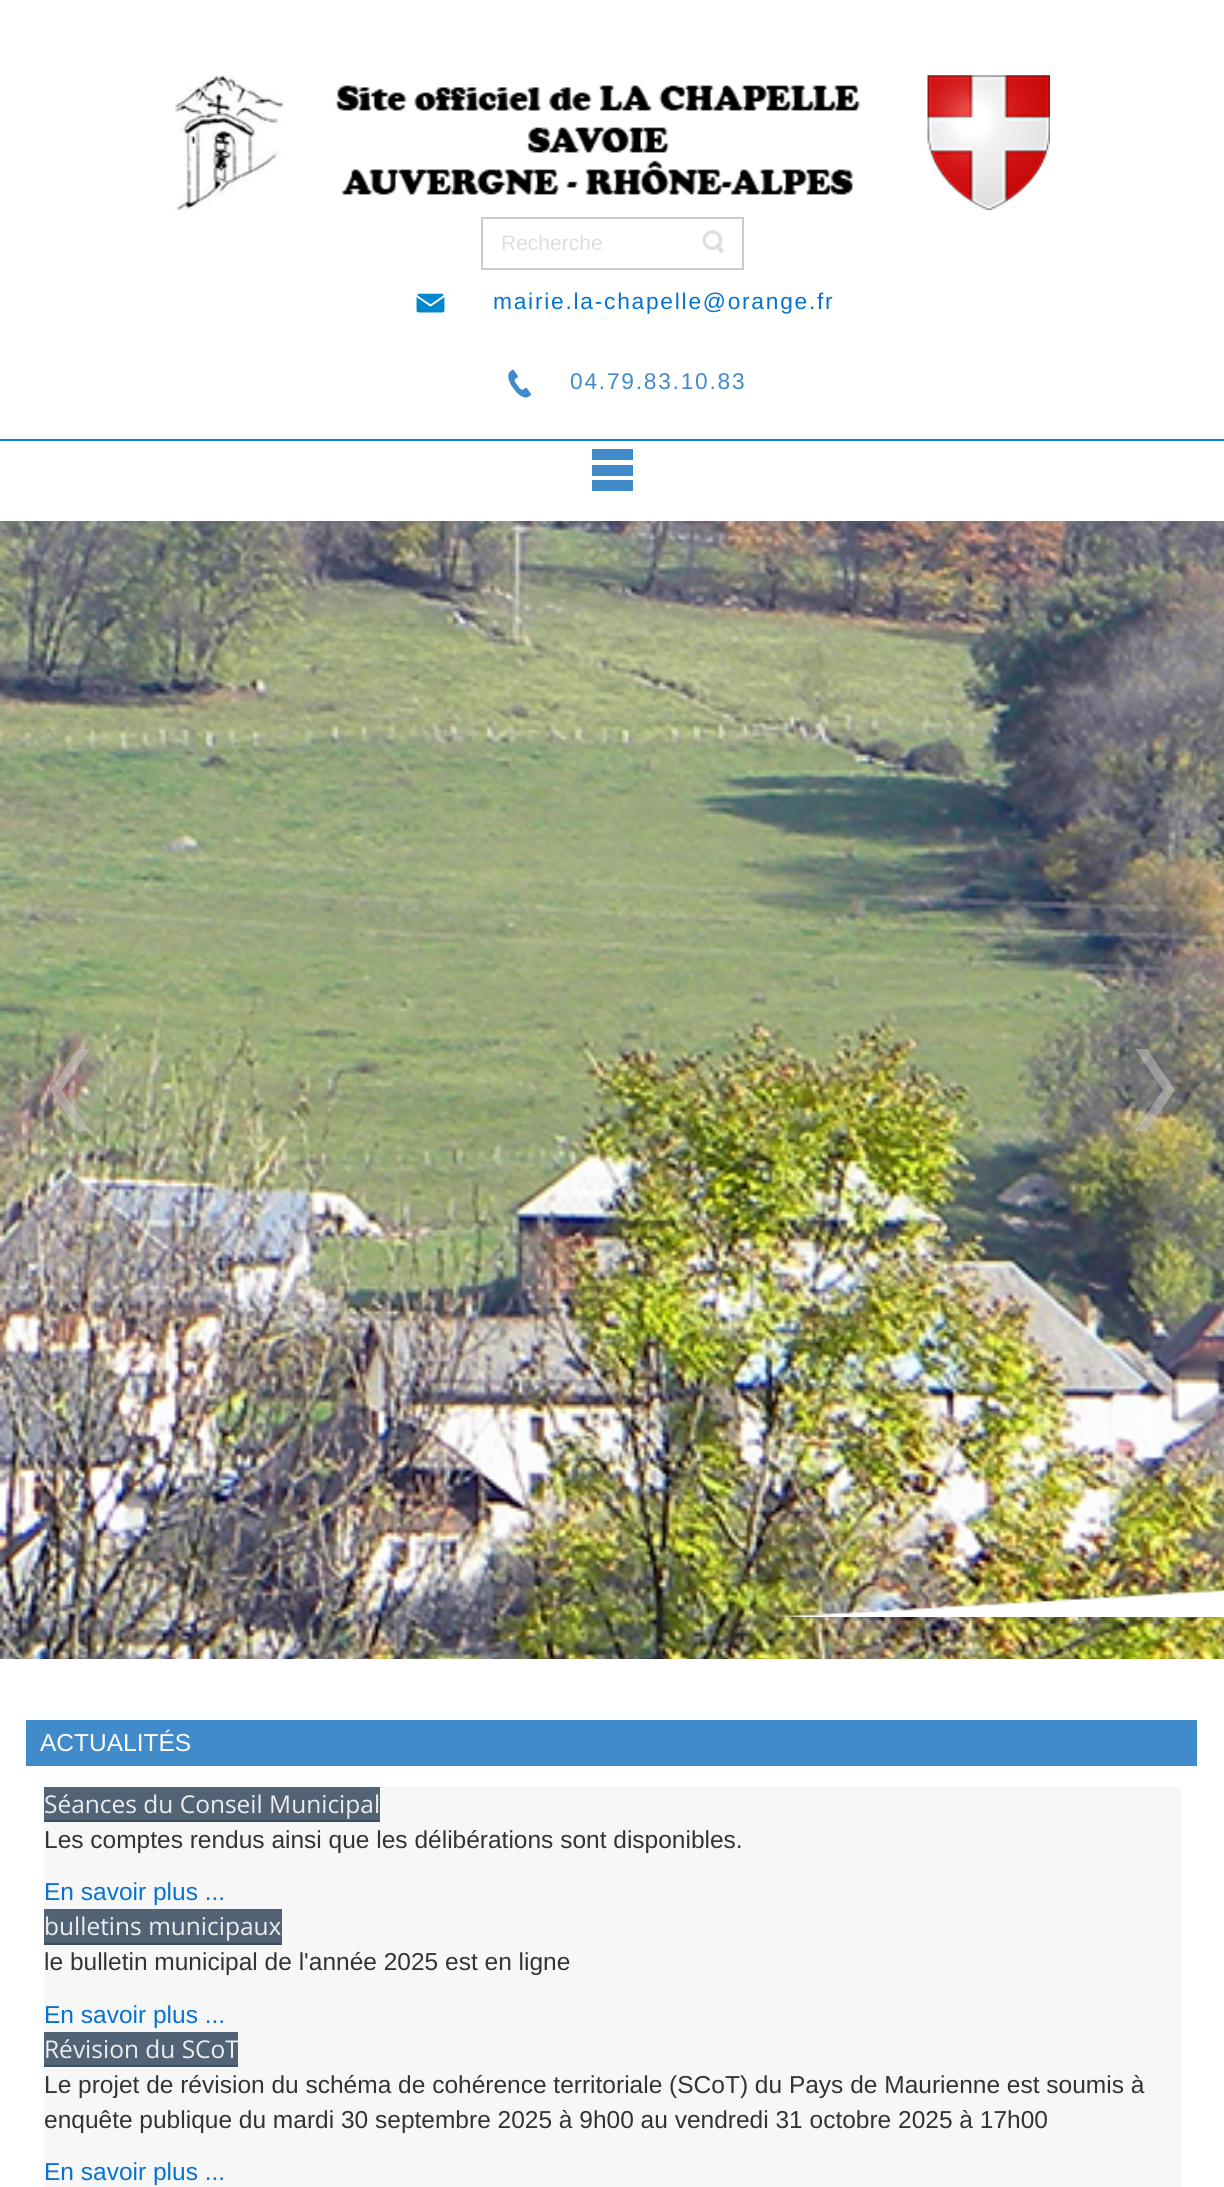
import math
import cairo

surface = cairo.ImageSurface(cairo.FORMAT_RGB24, 1224, 2187)
cr = cairo.Context(surface)
options = cairo.FontOptions()
options.set_hint_metrics(cairo.HINT_METRICS_OFF)
options.set_hint_style(cairo.HINT_STYLE_NONE)
cr.set_font_options(options)
cr.set_miter_limit(4)


def rgb(code):
    cr.set_source_rgb(*(v / 255 for v in bytes.fromhex(code[-6:])))


def tracked(x, y, s, letter, word):
    cr.move_to(x, y)
    for ch in s:
        cr.show_text(ch)
        cr.rel_move_to(letter + word * (ch == ' '), 0)


def image(path, x, y, w, h):
    cr.save()
    cr.set_source_surface(cairo.ImageSurface.create_from_png(path), x, y)
    cr.rectangle(x, y, w, h)
    cr.fill()
    cr.restore()


rgb("#ffffff")
cr.paint()
rgb("#0088cc")
cr.rectangle(0, 439, 1224, 2)
cr.fill()
image("img/1.png", 175, 75, 875, 135)
cr.rectangle(482, 218, 261, 51)
rgb("#cccccc")
cr.stroke()
image("img/2.png", 702, 230, 22, 23)
image("img/3.png", 416, 293, 29, 20)
image("img/4.png", 508, 369, 24, 29)
rgb("#428bca")
cr.new_path()
cr.move_to(592, 491)
cr.line_to(592, 480)
cr.line_to(633, 480)
cr.line_to(633, 491)
cr.close_path()
cr.move_to(592, 476)
cr.line_to(592, 465)
cr.line_to(633, 465)
cr.line_to(633, 476)
cr.close_path()
cr.move_to(592, 460)
cr.line_to(592, 449)
cr.line_to(633, 449)
cr.line_to(633, 460)
cr.close_path()
cr.fill()
image("img/5.png", 0, 521, 1224, 1138)
image("img/6.png", 777, 1589, 447, 28)
cr.set_source_rgba(0.8, 0.8, 0.8, 0.5)
cr.new_path()
cr.move_to(50, 1090)
cr.line_to(78, 1049)
cr.line_to(90, 1049)
cr.line_to(62, 1090)
cr.line_to(90, 1131)
cr.line_to(78, 1131)
cr.close_path()
cr.fill()
cr.new_path()
cr.move_to(1175, 1090)
cr.line_to(1147, 1049)
cr.line_to(1135, 1049)
cr.line_to(1163, 1090)
cr.line_to(1135, 1131)
cr.line_to(1147, 1131)
cr.close_path()
cr.fill()
for x, y, w, h, color in [
    (26, 1720, 1171, 46, "#428bca"),
    (44, 1787, 1137, 400, "#f7f7f7"),
    (44, 1787, 336, 33, "#536376"),
    (44, 1820, 336, 2, "#3f4f62"),
    (44, 1909, 238, 34, "#536376"),
    (44, 1943, 238, 2, "#3f4f62"),
    (44, 2032, 194, 33, "#536376"),
    (44, 2065, 194, 2, "#3f4f62"),
]:
    rgb(color)
    cr.rectangle(x, y, w, h)
    cr.fill()
cr.select_font_face("Liberation Sans")
cr.set_font_size(21)
rgb("#dddddd")
cr.move_to(501, 250)
cr.show_text("Recherche")
cr.set_font_size(22.75)
rgb("#0672d0")
tracked(493, 309, "mairie.la-chapelle@orange.fr", 1.75, 0)
rgb("#428bca")
tracked(570, 389, "04.79.83.10.83", 1.75, 0)
cr.set_font_size(24.5)
rgb("#ffffff")
cr.move_to(40, 1751)
cr.show_text("ACTUALITÉS")
cr.select_font_face("Open Sans")
rgb("#eeeeee")
cr.move_to(44, 1813)
cr.show_text("Séances du Conseil Municipal")
cr.select_font_face("Liberation Sans")
rgb("#333333")
cr.move_to(44, 1848)
cr.show_text("Les comptes rendus ainsi que les délibérations sont disponibles.")
rgb("#0672d0")
cr.move_to(44, 1900)
cr.show_text("En savoir plus ...")
cr.select_font_face("Open Sans")
rgb("#eeeeee")
cr.move_to(44, 1935)
cr.show_text("bulletins municipaux")
cr.select_font_face("Liberation Sans")
rgb("#333333")
cr.move_to(44, 1970)
cr.show_text("le bulletin municipal de l'année 2025 est en ligne")
rgb("#0672d0")
cr.move_to(44, 2023)
cr.show_text("En savoir plus ...")
cr.select_font_face("Open Sans")
rgb("#eeeeee")
cr.move_to(44, 2058)
cr.show_text("Révision du SCoT")
cr.select_font_face("Liberation Sans")
rgb("#333333")
cr.move_to(44, 2093)
cr.show_text("Le projet de révision du schéma de cohérence territoriale (SCoT) du Pays de Maurienne est soumis à")
cr.move_to(44, 2128)
cr.show_text("enquête publique du mardi 30 septembre 2025 à 9h00 au vendredi 31 octobre 2025 à 17h00")
rgb("#0672d0")
cr.move_to(44, 2180)
cr.show_text("En savoir plus ...")
surface.write_to_png("page.png")
